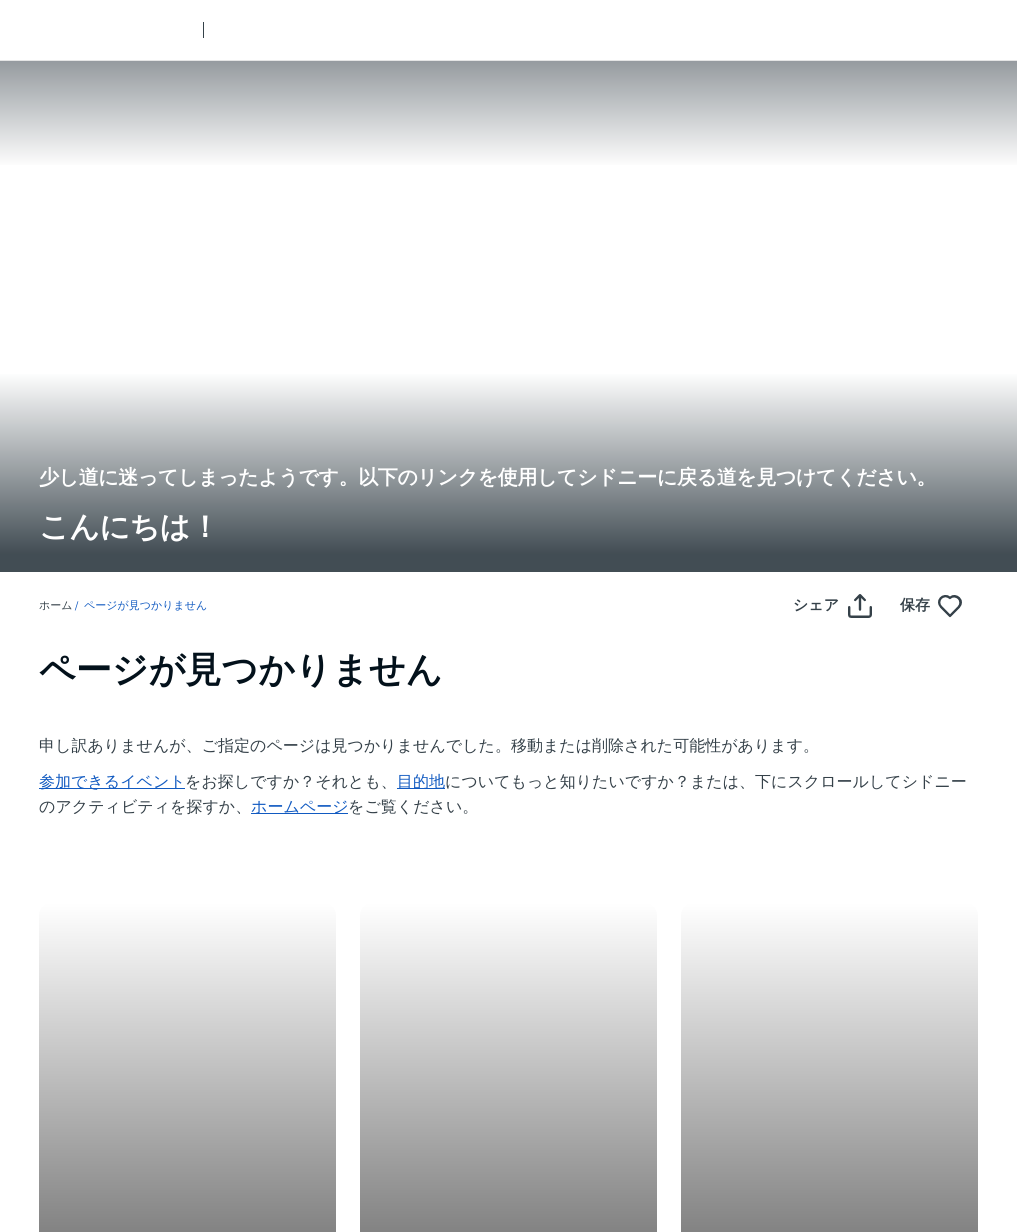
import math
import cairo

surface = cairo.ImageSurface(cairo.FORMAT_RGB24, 1017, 1232)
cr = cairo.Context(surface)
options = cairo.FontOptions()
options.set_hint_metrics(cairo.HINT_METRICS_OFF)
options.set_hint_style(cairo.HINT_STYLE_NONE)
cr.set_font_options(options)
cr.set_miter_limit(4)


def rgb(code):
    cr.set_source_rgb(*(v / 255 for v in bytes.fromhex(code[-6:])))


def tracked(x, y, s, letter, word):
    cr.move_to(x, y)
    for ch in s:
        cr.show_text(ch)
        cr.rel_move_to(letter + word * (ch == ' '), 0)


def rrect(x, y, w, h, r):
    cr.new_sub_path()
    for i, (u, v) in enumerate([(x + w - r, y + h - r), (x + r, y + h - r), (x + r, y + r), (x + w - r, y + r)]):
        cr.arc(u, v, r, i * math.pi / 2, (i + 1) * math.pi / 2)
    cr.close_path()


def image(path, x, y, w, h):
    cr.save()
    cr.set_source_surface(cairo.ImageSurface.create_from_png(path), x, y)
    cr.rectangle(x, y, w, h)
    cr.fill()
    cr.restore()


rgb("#ffffff")
cr.paint()
rgb("#e5e5e5")
cr.rectangle(0, 60, 1017, 1)
cr.fill()
rgb("#354149")
cr.rectangle(203, 22, 1, 16)
cr.fill()
gradient = cairo.LinearGradient(509, 0, 509, 168)
gradient.add_color_stop_rgba(0.09, 0.408, 0.439, 0.463, 1)
gradient.add_color_stop_rgba(1, 1, 1, 1, 1)
cr.set_source(gradient)
cr.rectangle(0, 61, 1017, 104)
cr.fill()
gradient = cairo.LinearGradient(509, 572, 509, 372)
gradient.add_color_stop_rgba(0.09, 0.259, 0.302, 0.329, 1)
gradient.add_color_stop_rgba(1, 1, 1, 1, 1)
cr.set_source(gradient)
cr.rectangle(0, 374, 1017, 198)
cr.fill()
image("img/1.png", 848, 594, 24, 24)
image("img/2.png", 938, 595, 24, 23)
for x, y, w, h, color in [
    (39, 788, 146, 1, "#115ac1"),
    (397, 788, 48, 1, "#115ac1"),
    (251, 813, 97, 1, "#115ac1"),
]:
    rgb(color)
    cr.rectangle(x, y, w, h)
    cr.fill()
gradient = cairo.LinearGradient(187, 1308, 187, 903)
gradient.add_color_stop_rgba(0, 0.4, 0.4, 0.4, 1)
gradient.add_color_stop_rgba(1, 1, 1, 1, 1)
cr.set_source(gradient)
rrect(39, 903, 297, 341, 12)
cr.fill()
gradient = cairo.LinearGradient(508, 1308, 508, 903)
gradient.add_color_stop_rgba(0, 0.4, 0.4, 0.4, 1)
gradient.add_color_stop_rgba(1, 1, 1, 1, 1)
cr.set_source(gradient)
rrect(360, 903, 297, 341, 12)
cr.fill()
gradient = cairo.LinearGradient(830, 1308, 830, 903)
gradient.add_color_stop_rgba(0, 0.4, 0.4, 0.4, 1)
gradient.add_color_stop_rgba(1, 1, 1, 1, 1)
cr.set_source(gradient)
rrect(681, 903, 297, 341, 12)
cr.fill()
cr.select_font_face("WenQuanYi Zen Hei", cairo.FONT_SLANT_NORMAL, cairo.FONT_WEIGHT_BOLD)
cr.set_font_size(20)
rgb("#ffffff")
tracked(39, 484, "少し道に迷ってしまったようです。以下のリンクを使用してシドニーに戻る道を見つけてください。", -0.4, 0)
cr.set_font_size(30)
tracked(39, 537, "こんにちは！", -0.5, 0)
cr.select_font_face("WenQuanYi Zen Hei Medium")
cr.set_font_size(11)
rgb("#354149")
cr.move_to(39, 609)
cr.show_text("ホーム")
cr.select_font_face("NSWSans")
rgb("#115ac1")
cr.move_to(74, 609)
cr.show_text("/")
cr.select_font_face("WenQuanYi Zen Hei Medium")
cr.move_to(84, 609)
cr.show_text("ページが見つかりません")
cr.select_font_face("WenQuanYi Zen Hei", cairo.FONT_SLANT_NORMAL, cairo.FONT_WEIGHT_BOLD)
cr.set_font_size(15)
rgb("#354149")
cr.move_to(793, 610)
cr.show_text("シェア")
cr.move_to(900, 610)
cr.show_text("保存")
cr.set_font_size(36)
rgb("#03111b")
cr.move_to(39, 682)
cr.show_text("ページが見つかりません")
cr.select_font_face("WenQuanYi Zen Hei Medium")
cr.set_font_size(16)
rgb("#354149")
cr.move_to(39, 751)
cr.show_text("申し訳ありませんが、ご指定のページは見つかりませんでした。移動または削除された可能性があります。")
rgb("#115ac1")
cr.move_to(39, 787)
cr.show_text("参加できるイベント")
rgb("#354149")
cr.move_to(185, 787)
cr.show_text("をお探しですか？それとも、")
rgb("#115ac1")
cr.move_to(397, 787)
cr.show_text("目的地")
rgb("#354149")
cr.move_to(445, 787)
cr.show_text("についてもっと知りたいですか？または、下にスクロールしてシドニー")
cr.move_to(39, 812)
cr.show_text("のアクティビティを探すか、")
rgb("#115ac1")
cr.move_to(251, 812)
cr.show_text("ホームページ")
rgb("#354149")
cr.move_to(348, 812)
cr.show_text("をご覧ください。")
surface.write_to_png("page.png")
